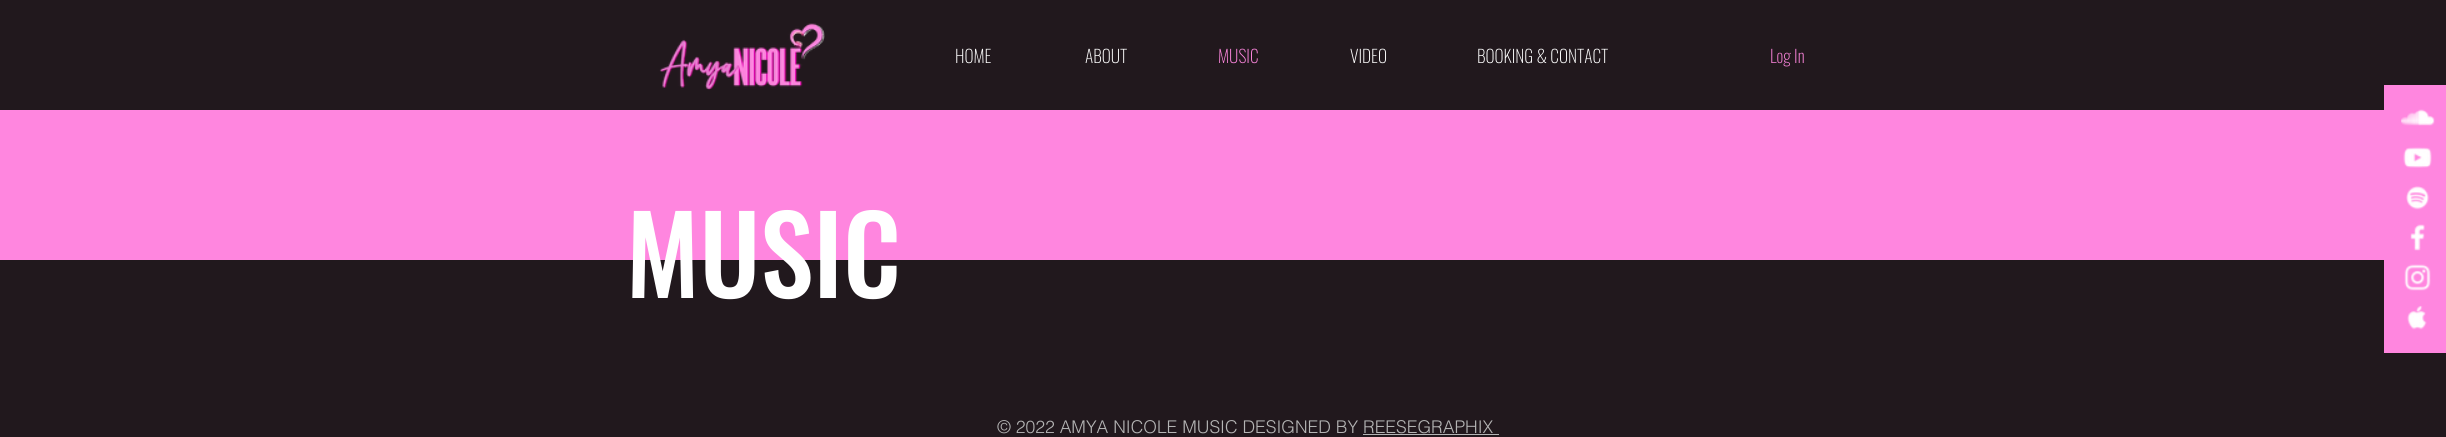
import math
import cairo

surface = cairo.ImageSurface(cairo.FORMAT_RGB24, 2446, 437)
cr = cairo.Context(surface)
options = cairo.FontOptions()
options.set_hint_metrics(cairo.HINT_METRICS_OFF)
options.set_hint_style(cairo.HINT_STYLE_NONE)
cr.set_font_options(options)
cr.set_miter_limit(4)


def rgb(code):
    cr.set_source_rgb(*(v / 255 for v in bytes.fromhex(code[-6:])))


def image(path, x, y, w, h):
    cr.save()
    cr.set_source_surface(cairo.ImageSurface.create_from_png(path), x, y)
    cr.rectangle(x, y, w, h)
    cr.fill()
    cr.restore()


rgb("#21181d")
cr.paint()
image("img/1.png", 659, 23, 166, 67)
rgb("#ff86df")
cr.rectangle(0, 110, 2384, 150)
cr.fill()
cr.rectangle(2384, 85, 62, 268)
cr.fill()
image("img/2.png", 2401, 109, 34, 17)
image("img/3.png", 2403, 147, 29, 21)
image("img/4.png", 2406, 186, 24, 24)
image("img/5.png", 2410, 224, 15, 27)
image("img/6.png", 2404, 264, 27, 27)
image("img/7.png", 2407, 305, 20, 25)
rgb("#b5b5b5")
cr.rectangle(1363, 434, 136, 1)
cr.fill()
cr.select_font_face("Oswald ExtraLight")
cr.set_font_size(17.5)
rgb("#ffffff")
cr.move_to(955, 63)
cr.show_text("HOME")
cr.move_to(1085, 63)
cr.show_text("ABOUT")
rgb("#ff86df")
cr.move_to(1218, 63)
cr.show_text("MUSIC")
rgb("#ffffff")
cr.move_to(1350, 63)
cr.show_text("VIDEO")
cr.move_to(1477, 63)
cr.show_text("BOOKING & CONTACT")
rgb("#ff86df")
cr.move_to(1770, 63)
cr.show_text("Log In")
cr.select_font_face("Oswald Medium")
cr.set_font_size(107.5)
rgb("#ffffff")
cr.move_to(626, 298)
cr.show_text("MUSIC")
cr.select_font_face("helvetica Light")
cr.set_font_size(17.5)
rgb("#b5b5b5")
cr.move_to(997, 433)
cr.show_text("© 2022 AMYA NICOLE MUSIC DESIGNED BY REESEGRAPHIX")
surface.write_to_png("page.png")
